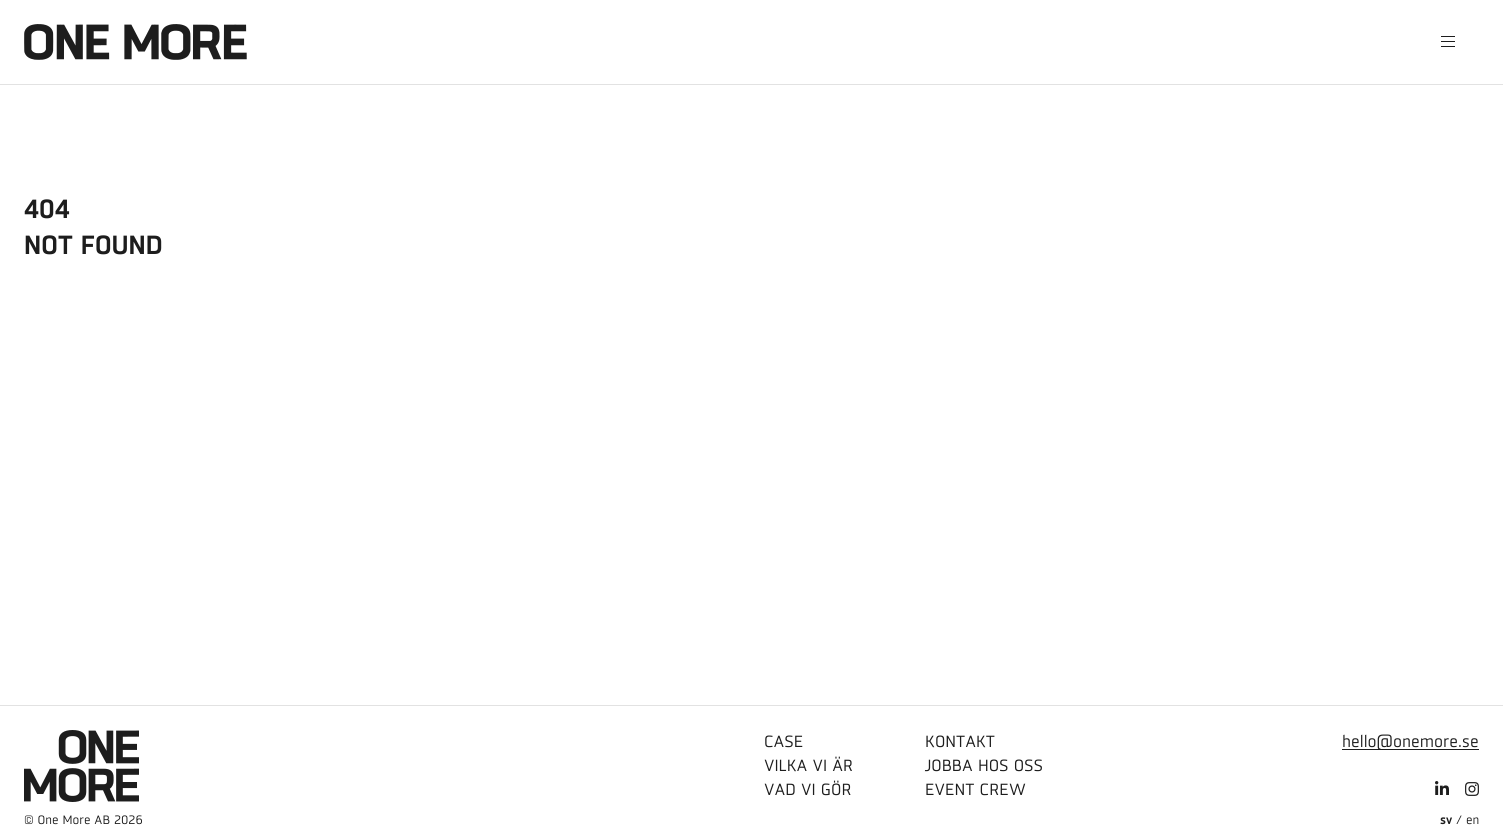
import math
import cairo

surface = cairo.ImageSurface(cairo.FORMAT_RGB24, 1503, 838)
cr = cairo.Context(surface)
options = cairo.FontOptions()
options.set_hint_metrics(cairo.HINT_METRICS_OFF)
options.set_hint_style(cairo.HINT_STYLE_NONE)
cr.set_font_options(options)
cr.set_miter_limit(4)


def rgb(code):
    cr.set_source_rgb(*(v / 255 for v in bytes.fromhex(code[-6:])))


def image(path, x, y, w, h):
    cr.save()
    cr.set_source_surface(cairo.ImageSurface.create_from_png(path), x, y)
    cr.rectangle(x, y, w, h)
    cr.fill()
    cr.restore()


rgb("#ffffff")
cr.paint()
rgb("#e2e2e2")
cr.rectangle(0, 84, 1503, 1)
cr.fill()
image("img/1.png", 24, 24, 223, 36)
image("img/2.png", 1441, 36, 14, 11)
cr.rectangle(0, 705, 1503, 1)
cr.fill()
image("img/3.png", 24, 730, 115, 72)
rgb("#1d1d1d")
cr.rectangle(1342, 749, 137, 1)
cr.fill()
image("img/4.png", 1435, 781, 14, 14)
image("img/5.png", 1465, 782, 14, 14)
cr.select_font_face("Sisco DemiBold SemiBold")
cr.set_font_size(26)
cr.move_to(24, 218)
cr.show_text("404")
cr.move_to(24, 254)
cr.show_text("NOT FOUND")
cr.select_font_face("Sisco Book")
cr.set_font_size(16)
for x, y, s in [
    (764, 747, "CASE"),
    (925, 747, "KONTAKT"),
    (764, 771, "VILKA VI ÄR"),
    (925, 771, "JOBBA HOS OSS"),
    (764, 795, "VAD VI GÖR"),
    (925, 795, "EVENT CREW"),
    (1342, 747, "hello@onemore.se"),
]:
    cr.move_to(x, y)
    cr.show_text(s)
cr.set_font_size(12)
cr.move_to(24, 824)
cr.show_text("© One More AB 2026")
cr.select_font_face("Sisco DemiBold SemiBold")
cr.move_to(1440, 824)
cr.show_text("sv")
cr.select_font_face("Sisco Book")
cr.move_to(1456, 824)
cr.show_text("/ en")
surface.write_to_png("page.png")
